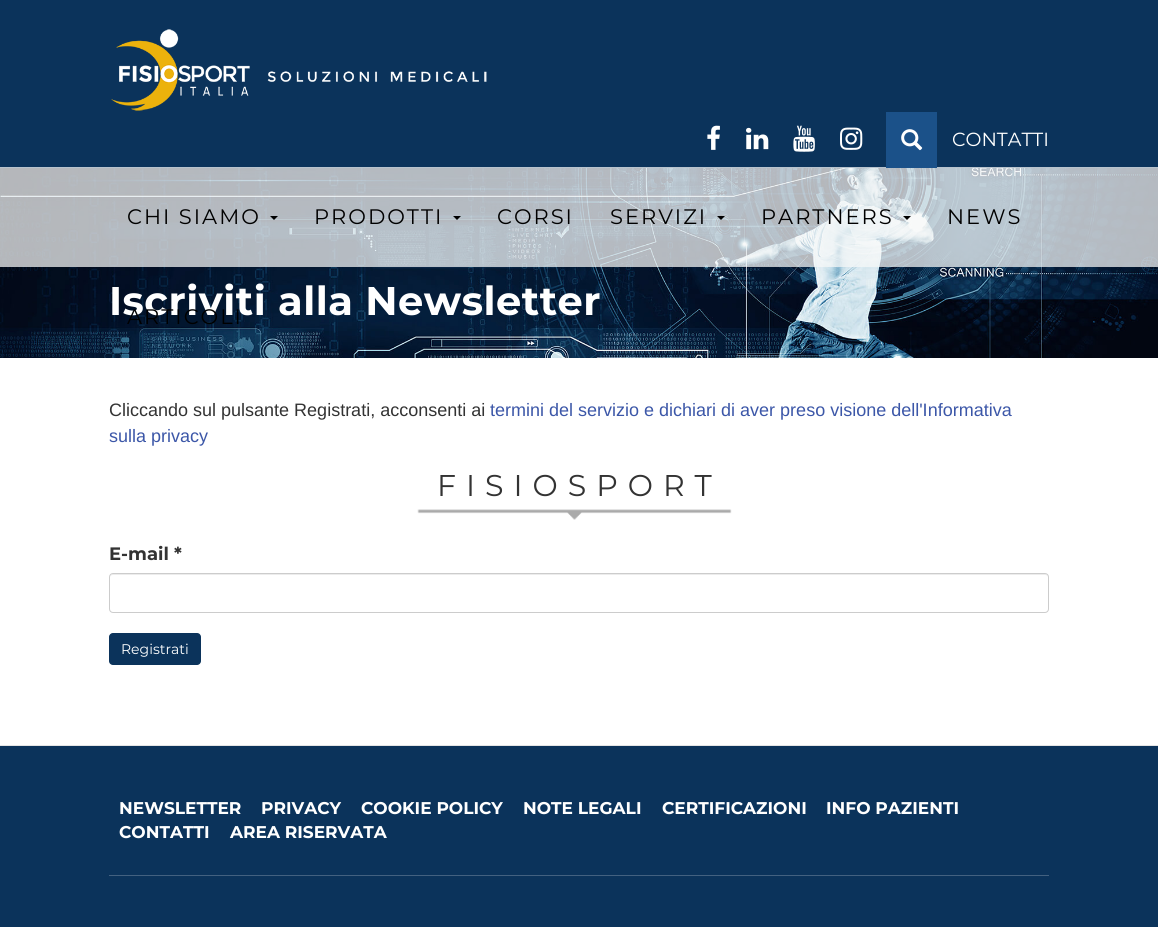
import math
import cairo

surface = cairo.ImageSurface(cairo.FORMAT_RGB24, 1158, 927)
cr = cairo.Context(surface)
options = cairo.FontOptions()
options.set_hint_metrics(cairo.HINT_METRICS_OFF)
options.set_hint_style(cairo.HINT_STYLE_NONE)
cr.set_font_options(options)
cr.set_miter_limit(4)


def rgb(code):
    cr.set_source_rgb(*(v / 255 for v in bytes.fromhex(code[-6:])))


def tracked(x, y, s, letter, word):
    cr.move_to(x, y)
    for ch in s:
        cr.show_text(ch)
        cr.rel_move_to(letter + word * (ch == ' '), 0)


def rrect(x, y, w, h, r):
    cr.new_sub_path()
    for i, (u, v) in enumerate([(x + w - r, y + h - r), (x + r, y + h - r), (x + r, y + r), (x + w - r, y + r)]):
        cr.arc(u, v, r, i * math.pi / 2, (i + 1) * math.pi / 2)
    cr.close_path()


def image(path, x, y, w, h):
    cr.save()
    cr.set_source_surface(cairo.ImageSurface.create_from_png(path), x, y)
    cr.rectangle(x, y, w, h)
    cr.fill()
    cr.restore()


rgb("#ffffff")
cr.paint()
rgb("#0b335b")
cr.rectangle(0, 0, 1158, 168)
cr.fill()
image("img/1.png", 111, 29, 376, 82)
image("img/2.png", 707, 125, 13, 25)
image("img/3.png", 746, 127, 23, 23)
image("img/4.png", 793, 125, 22, 27)
image("img/5.png", 840, 127, 23, 23)
image("img/7.png", 0, 168, 1158, 190)
cr.set_source_rgba(0.965, 0.969, 0.973, 0.73)
cr.rectangle(0, 167, 1158, 100)
cr.fill()
rgb("#1b5189")
cr.rectangle(886, 112, 51, 56)
cr.fill()
image("img/6.png", 901, 129, 22, 22)
rgb("#000000")
cr.new_path()
cr.move_to(270, 216)
cr.line_to(278, 216)
cr.line_to(274, 220)
cr.close_path()
cr.fill()
cr.new_path()
cr.move_to(453, 216)
cr.line_to(461, 216)
cr.line_to(457, 220)
cr.close_path()
cr.fill()
cr.new_path()
cr.move_to(717, 216)
cr.line_to(725, 216)
cr.line_to(721, 220)
cr.close_path()
cr.fill()
cr.new_path()
cr.move_to(903, 216)
cr.line_to(911, 216)
cr.line_to(907, 220)
cr.close_path()
cr.fill()
image("img/8.png", 417, 509, 315, 11)
rgb("#ececec")
cr.new_path()
cr.move_to(113, 575)
cr.line_to(1045, 575)
cr.curve_to(1047, 575, 1048, 576, 1048, 578)
cr.curve_to(1048, 576, 1047, 574, 1045, 574)
cr.line_to(113, 574)
cr.curve_to(111, 574, 110, 576, 110, 578)
cr.curve_to(110, 576, 111, 575, 113, 575)
cr.close_path()
cr.fill()
rrect(109.5, 573.5, 939, 39, 3.5)
rgb("#cccccc")
cr.set_line_width(1)
cr.stroke()
rgb("#0b335b")
rrect(109, 633, 92, 32, 4)
cr.fill()
for x, y, w, h, color in [
    (0, 746, 1158, 181, "#0b335b"),
    (0, 745, 1158, 1, "#e5e5e5"),
    (109, 875, 940, 1, "#436180"),
]:
    rgb(color)
    cr.rectangle(x, y, w, h)
    cr.fill()
cr.select_font_face("Montserrat")
cr.set_font_size(19)
rgb("#ffffff")
cr.move_to(952, 146)
cr.show_text("CONTATTI")
cr.set_font_size(21)
rgb("#000000")
for x, y, s in [
    (127, 224, "CHI SIAMO"),
    (314, 224, "PRODOTTI"),
    (497, 224, "CORSI"),
    (610, 224, "SERVIZI"),
    (761, 224, "PARTNERS"),
    (947, 224, "NEWS"),
]:
    tracked(x, y, s, 2, 0)
cr.select_font_face("Montserrat", cairo.FONT_SLANT_NORMAL, cairo.FONT_WEIGHT_BOLD)
cr.set_font_size(40)
rgb("#ffffff")
tracked(109, 315, "Iscriviti alla Newsletter", 0.5, 0)
cr.select_font_face("Montserrat")
cr.set_font_size(21)
rgb("#000000")
tracked(127, 324, "ARTICOLI", 2, 0)
cr.select_font_face("Liberation Sans")
cr.set_font_size(18)
rgb("#333333")
cr.move_to(109, 416)
cr.show_text("Cliccando sul pulsante Registrati, acconsenti ai")
rgb("#3c57a8")
cr.move_to(490, 416)
cr.show_text("termini del servizio e dichiari di aver preso visione dell'Informativa")
cr.move_to(109, 442)
cr.show_text("sulla privacy")
cr.select_font_face("Montserrat")
cr.set_font_size(30)
rgb("#333333")
tracked(437, 496, "FISIOSPORT", 10, 0)
cr.select_font_face("Montserrat", cairo.FONT_SLANT_NORMAL, cairo.FONT_WEIGHT_BOLD)
cr.set_font_size(18)
cr.move_to(109, 560)
cr.show_text("E-mail *")
cr.select_font_face("Montserrat")
cr.set_font_size(14)
rgb("#ffffff")
cr.move_to(121, 654)
cr.show_text("Registrati")
cr.select_font_face("Montserrat", cairo.FONT_SLANT_NORMAL, cairo.FONT_WEIGHT_BOLD)
cr.set_font_size(17)
for x, y, s in [
    (119, 814, "NEWSLETTER"),
    (261, 814, "PRIVACY"),
    (361, 814, "COOKIE POLICY"),
    (523, 814, "NOTE LEGALI"),
    (662, 814, "CERTIFICAZIONI"),
    (826, 814, "INFO PAZIENTI"),
    (119, 838, "CONTATTI"),
    (230, 838, "AREA RISERVATA"),
]:
    cr.move_to(x, y)
    cr.show_text(s)
surface.write_to_png("page.png")
